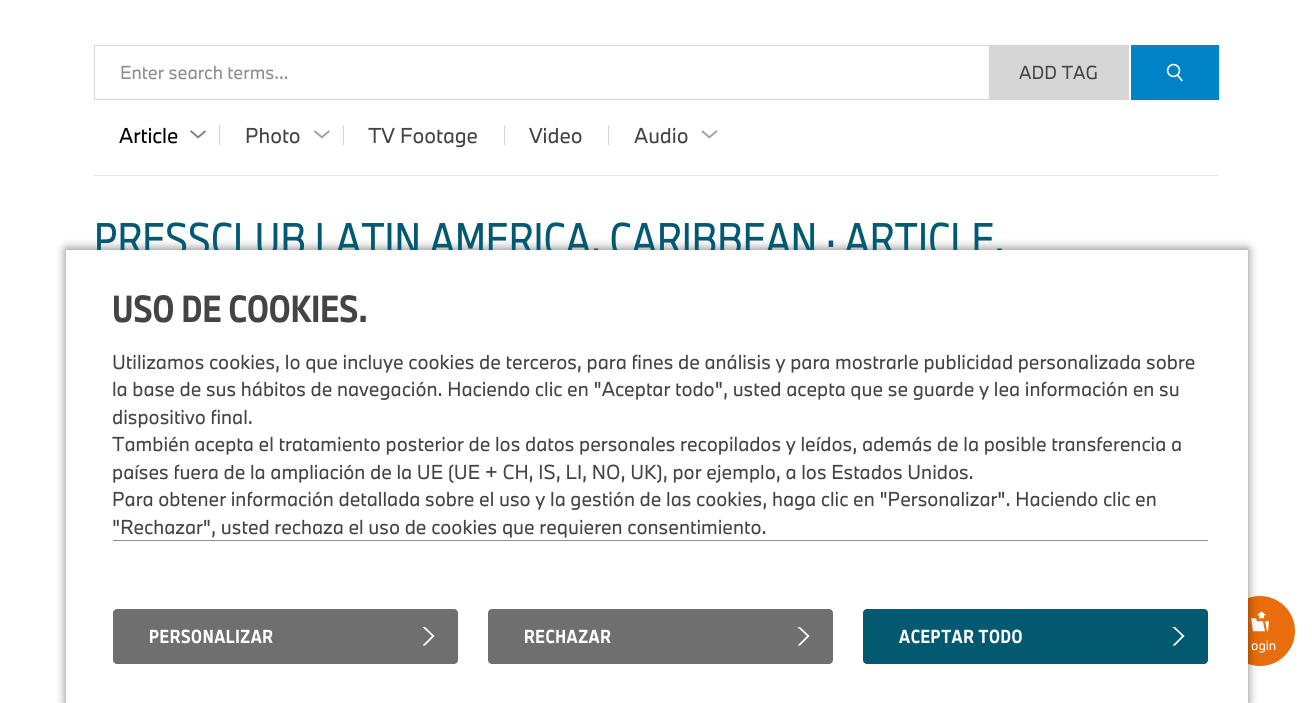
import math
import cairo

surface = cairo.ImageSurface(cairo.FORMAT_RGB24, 1312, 703)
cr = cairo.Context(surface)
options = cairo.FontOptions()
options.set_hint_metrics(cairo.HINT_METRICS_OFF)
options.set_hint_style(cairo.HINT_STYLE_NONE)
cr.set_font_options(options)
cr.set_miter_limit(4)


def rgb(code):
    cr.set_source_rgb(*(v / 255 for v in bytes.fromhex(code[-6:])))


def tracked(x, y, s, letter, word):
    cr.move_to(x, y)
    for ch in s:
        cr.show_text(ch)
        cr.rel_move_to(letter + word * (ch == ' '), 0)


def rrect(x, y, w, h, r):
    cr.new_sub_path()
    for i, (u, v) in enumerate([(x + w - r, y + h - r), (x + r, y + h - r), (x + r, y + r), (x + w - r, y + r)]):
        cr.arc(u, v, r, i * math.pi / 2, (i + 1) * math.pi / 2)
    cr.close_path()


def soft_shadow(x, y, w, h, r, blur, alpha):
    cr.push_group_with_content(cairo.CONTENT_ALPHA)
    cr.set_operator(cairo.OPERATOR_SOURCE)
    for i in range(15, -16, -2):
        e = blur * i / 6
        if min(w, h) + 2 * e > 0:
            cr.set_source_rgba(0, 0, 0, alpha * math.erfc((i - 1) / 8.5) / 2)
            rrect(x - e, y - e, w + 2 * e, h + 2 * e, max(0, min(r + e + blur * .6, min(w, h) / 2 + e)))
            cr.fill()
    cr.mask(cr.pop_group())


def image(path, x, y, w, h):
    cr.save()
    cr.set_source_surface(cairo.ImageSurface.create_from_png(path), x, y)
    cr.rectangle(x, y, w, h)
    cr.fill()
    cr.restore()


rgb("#ffffff")
cr.paint()
for x, y, w, h, color in [
    (94, 45, 895, 1, "#d6d6d6"),
    (94, 99, 895, 1, "#d6d6d6"),
    (94, 45, 1, 55, "#d6d6d6"),
    (989, 45, 140, 55, "#d6d6d6"),
    (1131, 45, 88, 55, "#0083c6"),
]:
    rgb(color)
    cr.rectangle(x, y, w, h)
    cr.fill()
image("img/1.png", 1166, 63, 17, 19)
rgb("#d6d6d6")
cr.rectangle(219, 125, 1, 20)
cr.fill()
image("img/2.png", 190, 130, 16, 9)
cr.rectangle(343, 125, 1, 20)
cr.fill()
image("img/3.png", 313, 130, 17, 9)
cr.rectangle(504, 125, 1, 20)
cr.fill()
cr.rectangle(608, 125, 1, 20)
cr.fill()
image("img/4.png", 701, 130, 17, 9)
rgb("#e5e5e5")
cr.rectangle(94, 175, 1125, 1)
cr.fill()
rgb("#e96d0c")
cr.arc(1260, 631, 35, 0, 2 * math.pi)
cr.fill()
image("img/5.png", 1251, 611, 18, 21)
rgb("#000000")
soft_shadow(66, 249, 1182, 454, 0, 5, 0.5)
cr.select_font_face("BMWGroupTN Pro")
cr.set_font_size(17.5)
rgb("#8d8d8d")
cr.move_to(120, 79)
cr.show_text("Enter search terms...")
rgb("#444444")
cr.move_to(1019, 79)
cr.show_text("ADD TAG")
cr.set_font_size(20)
rgb("#000000")
cr.move_to(119, 143)
cr.show_text("Article")
rgb("#444444")
for x, y, s in [
    (245, 143, "Photo"),
    (368, 143, "TV Footage"),
    (529, 143, "Video"),
    (634, 143, "Audio"),
]:
    cr.move_to(x, y)
    cr.show_text(s)
cr.select_font_face("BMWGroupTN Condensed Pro")
cr.set_font_size(42.4)
rgb("#035970")
cr.move_to(94, 255)
cr.show_text("PRESSCLUB LATIN AMERICA, CARIBBEAN · ARTICLE.")
rgb("#ffffff")
cr.rectangle(66, 250, 1182, 453)
cr.fill()
cr.select_font_face("BMWGroupTN Condensed Pro", cairo.FONT_SLANT_NORMAL, cairo.FONT_WEIGHT_BOLD)
cr.set_font_size(35)
rgb("#444444")
cr.move_to(112, 322)
cr.show_text("USO DE COOKIES.")
cr.select_font_face("BMWGroupTN Pro")
cr.set_font_size(18.75)
for x, y, s in [
    (112, 369, "Utilizamos cookies, lo que incluye cookies de terceros, para fines de análisis y para mostrarle publicidad personalizada sobre"),
    (112, 396, "la base de sus hábitos de navegación. Haciendo clic en \"Aceptar todo\", usted acepta que se guarde y lea información en su"),
    (112, 424, "dispositivo final."),
    (112, 451, "También acepta el tratamiento posterior de los datos personales recopilados y leídos, además de la posible transferencia a"),
    (112, 479, "países fuera de la ampliación de la UE (UE + CH, IS, LI, NO, UK), por ejemplo, a los Estados Unidos."),
    (112, 506, "Para obtener información detallada sobre el uso y la gestión de las cookies, haga clic en \"Personalizar\". Haciendo clic en"),
    (112, 534, "\"Rechazar\", usted rechaza el uso de cookies que requieren consentimiento."),
]:
    cr.move_to(x, y)
    cr.show_text(s)
rgb("#8e8e8e")
cr.rectangle(113, 540, 1095, 1)
cr.fill()
rgb("#6f6f6f")
rrect(113, 609, 345, 55, 4)
cr.fill()
rgb("#ffffff")
cr.new_path()
cr.move_to(422.5, 645.5)
cr.line_to(432, 636)
cr.line_to(422.5, 627)
cr.line_to(425, 627)
cr.line_to(434.5, 636)
cr.line_to(425, 645.5)
cr.close_path()
cr.fill()
cr.select_font_face("BMWGroupTN Condensed Pro", cairo.FONT_SLANT_NORMAL, cairo.FONT_WEIGHT_BOLD)
cr.set_font_size(17.5)
tracked(149, 643, "PERSONALIZAR", 0.6, 0)
rgb("#6f6f6f")
rrect(488, 609, 345, 55, 4)
cr.fill()
rgb("#ffffff")
cr.new_path()
cr.move_to(797.5, 645.5)
cr.line_to(807, 636)
cr.line_to(797.5, 627)
cr.line_to(800, 627)
cr.line_to(809.5, 636)
cr.line_to(800, 645.5)
cr.close_path()
cr.fill()
tracked(524, 643, "RECHAZAR", 0.6, 0)
rgb("#035970")
rrect(863, 609, 345, 55, 4)
cr.fill()
rgb("#ffffff")
cr.new_path()
cr.move_to(1172.5, 645.5)
cr.line_to(1182, 636)
cr.line_to(1172.5, 627)
cr.line_to(1175, 627)
cr.line_to(1184.5, 636)
cr.line_to(1175, 645.5)
cr.close_path()
cr.fill()
tracked(899, 643, "ACEPTAR TODO", 0.6, 0)
cr.select_font_face("BMWGroupTN Pro")
cr.set_font_size(12.5)
cr.move_to(1251, 650)
cr.show_text("ogin")
surface.write_to_png("page.png")
